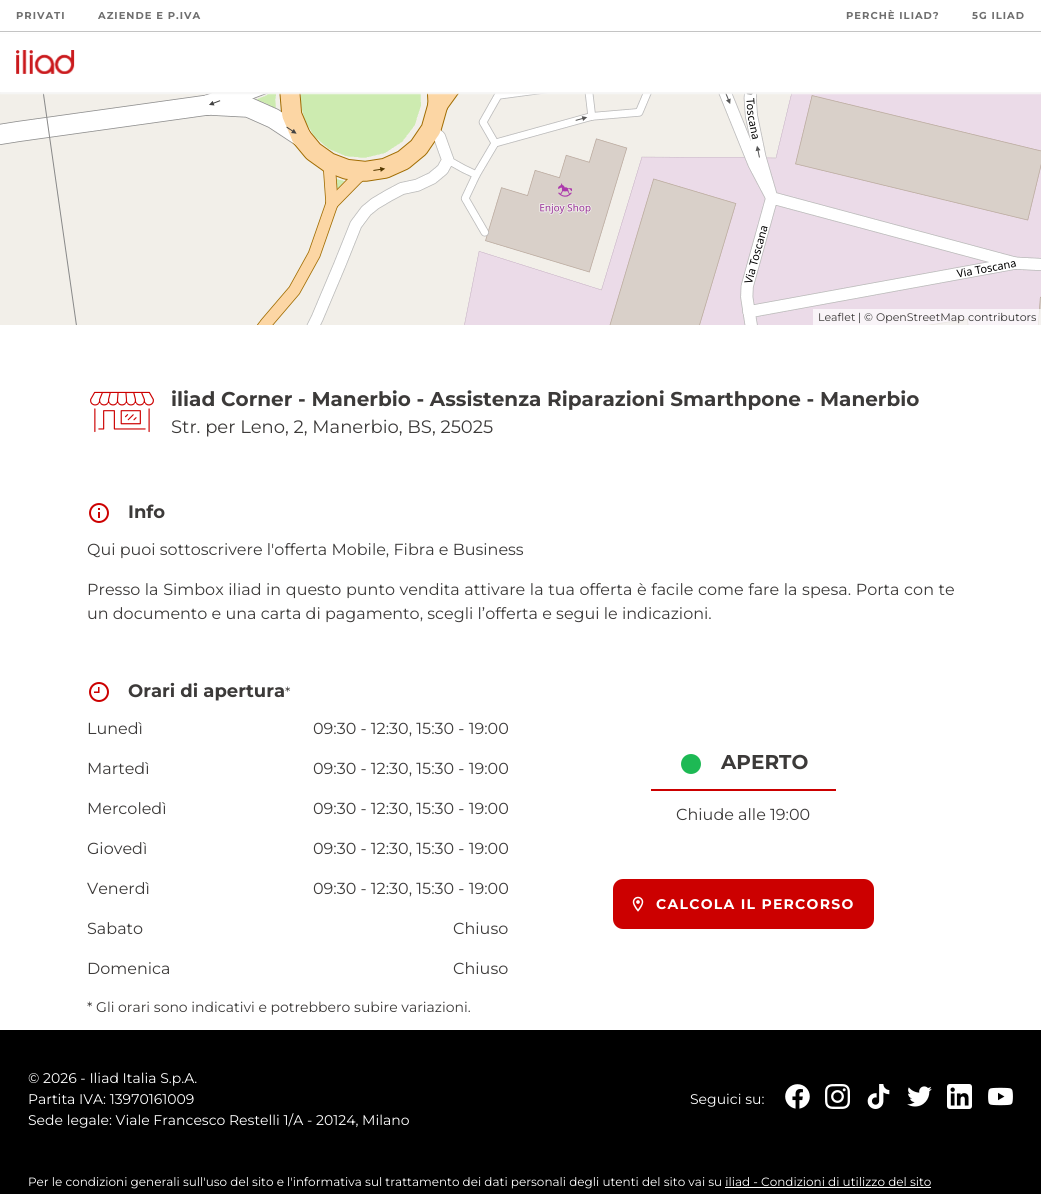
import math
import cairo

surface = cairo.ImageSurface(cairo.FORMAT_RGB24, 1041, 1194)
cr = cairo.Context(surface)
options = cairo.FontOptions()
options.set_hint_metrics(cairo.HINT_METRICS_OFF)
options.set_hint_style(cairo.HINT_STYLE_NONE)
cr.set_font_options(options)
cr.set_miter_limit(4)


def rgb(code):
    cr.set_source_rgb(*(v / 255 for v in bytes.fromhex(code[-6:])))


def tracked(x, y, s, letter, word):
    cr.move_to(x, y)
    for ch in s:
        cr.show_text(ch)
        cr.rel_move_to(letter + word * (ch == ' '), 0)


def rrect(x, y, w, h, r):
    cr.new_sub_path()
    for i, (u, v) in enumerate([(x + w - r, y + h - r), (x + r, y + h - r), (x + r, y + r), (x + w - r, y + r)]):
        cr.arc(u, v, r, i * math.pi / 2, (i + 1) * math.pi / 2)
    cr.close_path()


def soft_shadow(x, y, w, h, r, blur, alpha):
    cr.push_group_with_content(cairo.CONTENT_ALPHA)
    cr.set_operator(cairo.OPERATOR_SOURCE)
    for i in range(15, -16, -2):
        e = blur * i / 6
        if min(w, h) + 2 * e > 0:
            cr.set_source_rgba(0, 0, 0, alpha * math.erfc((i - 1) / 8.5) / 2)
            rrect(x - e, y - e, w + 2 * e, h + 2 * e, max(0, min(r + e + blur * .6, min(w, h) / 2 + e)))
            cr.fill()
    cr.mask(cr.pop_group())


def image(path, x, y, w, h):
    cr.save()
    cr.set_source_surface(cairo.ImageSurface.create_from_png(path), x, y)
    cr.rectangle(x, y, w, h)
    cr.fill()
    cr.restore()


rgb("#ffffff")
cr.paint()
image("img/2.png", 0, 92, 217, 233)
image("img/3.png", 217, 93, 256, 232)
image("img/4.png", 473, 93, 256, 232)
image("img/5.png", 729, 93, 256, 232)
image("img/6.png", 985, 92, 56, 233)
rgb("#f6f6f6")
soft_shadow(0, 34, 1041, 60, 0, 0.5, 1)
rgb("#c4c4c4")
cr.rectangle(0, 31, 1041, 1)
cr.fill()
rgb("#ffffff")
cr.rectangle(0, 34, 1041, 58)
cr.fill()
image("img/1.png", 16, 50, 59, 24)
cr.set_source_rgba(1, 1, 1, 0.7)
cr.rectangle(813, 309, 228, 16)
cr.fill()
image("img/7.png", 90, 391, 64, 42)
image("img/8.png", 89, 503, 20, 20)
image("img/9.png", 89, 682, 20, 20)
image("img/10.png", 681, 754, 20, 20)
rgb("#cc0000")
cr.rectangle(651, 789, 185, 2)
cr.fill()
rrect(613, 879, 261, 50, 10)
cr.fill()
image("img/11.png", 632, 896, 12, 16)
rgb("#000000")
cr.rectangle(0, 1030, 1041, 164)
cr.fill()
image("img/12.png", 785, 1084, 25, 25)
image("img/13.png", 825, 1084, 25, 25)
image("img/14.png", 867, 1084, 23, 25)
image("img/15.png", 907, 1086, 25, 21)
image("img/16.png", 947, 1084, 25, 25)
image("img/17.png", 988, 1087, 25, 19)
rgb("#ffffff")
cr.rectangle(725, 1187, 206, 1)
cr.fill()
cr.select_font_face("Montserrat Thin")
cr.set_font_size(10)
rgb("#6f6f6f")
for x, y, s in [
    (16, 19, "PRIVATI"),
    (98, 19, "AZIENDE E P.IVA"),
    (846, 19, "PERCHÈ ILIAD?"),
    (972, 19, "5G ILIAD"),
]:
    tracked(x, y, s, 1, 0)
cr.select_font_face("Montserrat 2 Thin")
cr.set_font_size(11)
rgb("#3c3a39")
cr.move_to(818, 321)
cr.show_text("Leaflet")
rgb("#333333")
cr.move_to(858, 321)
cr.show_text("| ©")
rgb("#3c3a39")
cr.move_to(876, 321)
cr.show_text("OpenStreetMap")
rgb("#333333")
cr.move_to(968, 321)
cr.show_text("contributors")
cr.select_font_face("Montserrat Thin")
cr.set_font_size(20)
rgb("#3c3a39")
cr.move_to(171, 406)
cr.show_text("iliad Corner - Manerbio - Assistenza Riparazioni Smarthpone - Manerbio")
cr.select_font_face("Montserrat 2 Thin")
cr.set_font_size(18)
cr.move_to(171, 433)
cr.show_text("Str. per Leno, 2, Manerbio, BS, 25025")
cr.select_font_face("Montserrat Thin")
cr.move_to(128, 518)
cr.show_text("Info")
cr.select_font_face("Montserrat 2 Thin")
cr.set_font_size(16)
cr.move_to(87, 555)
cr.show_text("Qui puoi sottoscrivere l'offerta Mobile, Fibra e Business")
tracked(87, 595, "Presso la Simbox iliad in questo punto vendita attivare la tua offerta è facile come fare la spesa. Porta con te", 0, 0.4)
cr.move_to(87, 619)
cr.show_text("un documento e una carta di pagamento, scegli l’offerta e segui le indicazioni.")
cr.select_font_face("Montserrat Thin")
cr.set_font_size(18)
cr.move_to(128, 697)
cr.show_text("Orari di apertura")
cr.select_font_face("Montserrat 2 Thin")
cr.set_font_size(14)
cr.move_to(285, 697)
cr.show_text("*")
cr.set_font_size(16)
for x, y, s in [
    (87, 734, "Lunedì"),
    (313, 734, "09:30 - 12:30, 15:30 - 19:00"),
    (87, 774, "Martedì"),
    (313, 774, "09:30 - 12:30, 15:30 - 19:00"),
    (87, 814, "Mercoledì"),
    (313, 814, "09:30 - 12:30, 15:30 - 19:00"),
    (87, 854, "Giovedì"),
    (313, 854, "09:30 - 12:30, 15:30 - 19:00"),
    (87, 894, "Venerdì"),
    (313, 894, "09:30 - 12:30, 15:30 - 19:00"),
    (87, 934, "Sabato"),
    (453, 934, "Chiuso"),
    (87, 974, "Domenica"),
    (453, 974, "Chiuso"),
]:
    cr.move_to(x, y)
    cr.show_text(s)
cr.set_font_size(14)
cr.move_to(87, 1012)
cr.show_text("* Gli orari sono indicativi e potrebbero subire variazioni.")
cr.select_font_face("Montserrat Thin")
cr.set_font_size(20)
cr.move_to(721, 769)
cr.show_text("APERTO")
cr.select_font_face("Montserrat 2 Thin")
cr.set_font_size(16)
cr.move_to(676, 820)
cr.show_text("Chiude alle 19:00")
cr.select_font_face("Montserrat Thin")
cr.set_font_size(14)
rgb("#ffffff")
tracked(656, 909, "CALCOLA IL PERCORSO", 1.25, 0)
cr.select_font_face("Montserrat 2 Thin")
for x, y, s in [
    (28, 1083, "© 2026 - Iliad Italia S.p.A."),
    (28, 1104, "Partita IVA: 13970161009"),
    (28, 1125, "Sede legale: Viale Francesco Restelli 1/A - 20124, Milano"),
    (690, 1104, "Seguici su:"),
]:
    cr.move_to(x, y)
    cr.show_text(s)
cr.set_font_size(12)
cr.move_to(28, 1186)
cr.show_text("Per le condizioni generali sull'uso del sito e l'informativa sul trattamento dei dati personali degli utenti del sito vai su iliad - Condizioni di utilizzo del sito")
surface.write_to_png("page.png")
